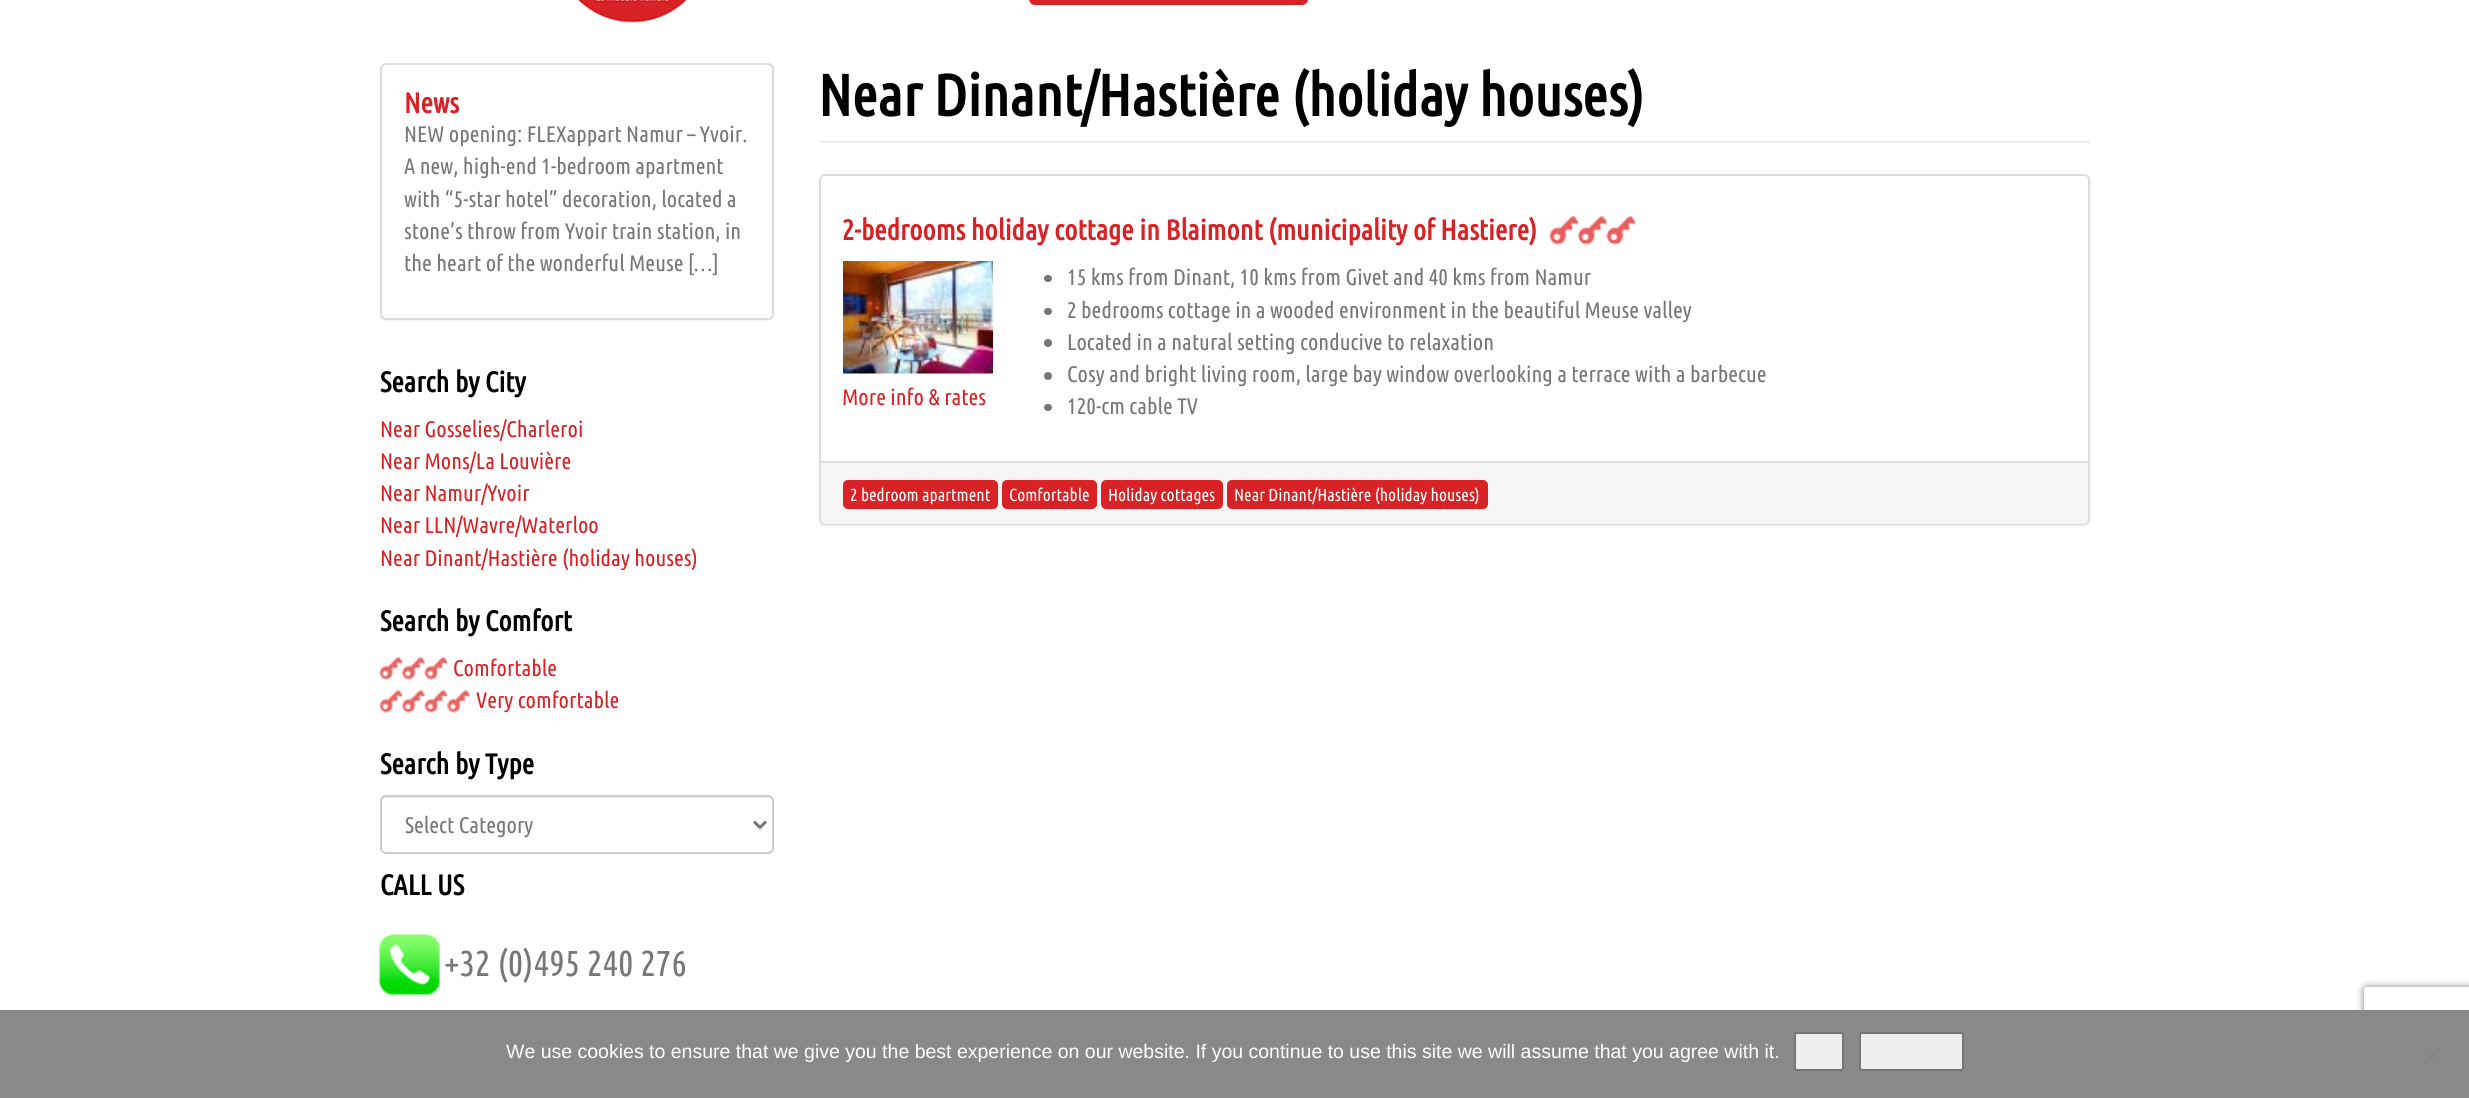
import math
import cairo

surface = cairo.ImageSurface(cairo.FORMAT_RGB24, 2469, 1098)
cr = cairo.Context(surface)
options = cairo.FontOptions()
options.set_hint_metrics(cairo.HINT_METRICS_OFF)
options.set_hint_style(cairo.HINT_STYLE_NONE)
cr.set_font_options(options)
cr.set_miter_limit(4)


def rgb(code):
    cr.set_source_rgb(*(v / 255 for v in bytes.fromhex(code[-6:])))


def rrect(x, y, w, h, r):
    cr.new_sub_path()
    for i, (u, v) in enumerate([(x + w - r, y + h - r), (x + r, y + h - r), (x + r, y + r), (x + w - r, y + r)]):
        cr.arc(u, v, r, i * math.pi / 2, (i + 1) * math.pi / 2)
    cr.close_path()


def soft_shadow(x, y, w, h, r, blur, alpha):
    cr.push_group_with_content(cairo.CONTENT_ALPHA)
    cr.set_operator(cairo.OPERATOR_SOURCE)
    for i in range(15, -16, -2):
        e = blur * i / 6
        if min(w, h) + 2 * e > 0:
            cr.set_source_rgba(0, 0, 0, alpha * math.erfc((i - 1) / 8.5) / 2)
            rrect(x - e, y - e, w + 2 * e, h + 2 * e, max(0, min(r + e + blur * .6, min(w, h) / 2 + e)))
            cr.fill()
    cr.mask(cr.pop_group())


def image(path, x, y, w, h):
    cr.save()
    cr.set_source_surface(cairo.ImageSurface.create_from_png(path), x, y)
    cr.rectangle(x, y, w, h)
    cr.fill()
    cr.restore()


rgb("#ffffff")
cr.paint()
image("img/1.png", 578, 0, 109, 23)
rgb("#d92225")
rrect(1029, -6, 279, 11, 6)
cr.fill()
rgb("#000000")
soft_shadow(380, 65, 394, 256, 6, 1, 0.05)
rgb("#ffffff")
rrect(381, 64, 392, 255, 5)
cr.fill_preserve()
rgb("#dddddd")
cr.stroke()
image("img/2.png", 379, 657, 68, 23)
image("img/3.png", 379, 690, 91, 23)
rgb("#ececec")
cr.new_path()
cr.move_to(386, 798)
cr.line_to(768, 798)
cr.curve_to(770, 798, 772, 800, 772, 802)
cr.line_to(772, 850)
cr.curve_to(773, 849, 773, 848, 773, 847)
cr.line_to(773, 802)
cr.curve_to(773, 799, 771, 797, 768, 797)
cr.line_to(386, 797)
cr.curve_to(383, 797, 381, 799, 381, 802)
cr.curve_to(381, 800, 383, 798, 386, 798)
cr.close_path()
cr.fill()
rrect(381, 796, 392, 57, 5)
rgb("#cccccc")
cr.stroke()
cr.new_path()
cr.move_to(754, 821.5)
cr.line_to(760, 827.5)
cr.line_to(766, 821.5)
rgb("#777777")
cr.set_line_width(3)
cr.stroke()
image("img/4.png", 379, 934, 61, 61)
rgb("#eeeeee")
cr.rectangle(819, 141, 1271, 2)
cr.fill()
rgb("#000000")
soft_shadow(819, 176, 1271, 351, 6, 1, 0.05)
rgb("#ffffff")
rrect(820, 175, 1269, 349, 5)
cr.fill_preserve()
rgb("#dddddd")
cr.set_line_width(2)
cr.stroke()
image("img/5.png", 1549, 216, 86, 29)
image("img/6.png", 843, 261, 150, 113)
rgb("#777777")
rrect(1044, 275, 8, 7, 3.5)
cr.fill()
rrect(1044, 308, 8, 7, 3.5)
cr.fill()
cr.arc(1048, 343, 4, 0, 2 * math.pi)
cr.fill()
cr.arc(1048, 376, 4, 0, 2 * math.pi)
cr.fill()
rrect(1044, 404, 8, 7, 3.5)
cr.fill()
rgb("#f5f5f5")
cr.new_path()
cr.move_to(821, 461)
cr.line_to(2088, 461)
cr.line_to(2088, 519)
cr.curve_to(2088, 522, 2086, 524, 2083, 524)
cr.line_to(826, 524)
cr.curve_to(823, 524, 821, 522, 821, 519)
cr.close_path()
cr.fill()
rgb("#dddddd")
cr.rectangle(821, 461, 1267, 2)
cr.fill()
rgb("#d92225")
rrect(843, 480, 155, 29, 5)
cr.fill()
rrect(1002, 480, 95, 29, 5)
cr.fill()
rrect(1101, 480, 122, 29, 5)
cr.fill()
rrect(1227, 480, 261, 29, 5)
cr.fill()
cr.save()
cr.set_fill_rule(cairo.FILL_RULE_EVEN_ODD)
cr.new_path()
cr.move_to(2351, 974)
cr.line_to(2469, 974)
cr.line_to(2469, 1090)
cr.line_to(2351, 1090)
cr.close_path()
cr.move_to(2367, 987)
cr.line_to(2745, 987)
cr.curve_to(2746.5, 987, 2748, 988.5, 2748, 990)
cr.line_to(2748, 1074)
cr.curve_to(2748, 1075.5, 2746.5, 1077, 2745, 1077)
cr.line_to(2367, 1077)
cr.curve_to(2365.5, 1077, 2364, 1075.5, 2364, 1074)
cr.line_to(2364, 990)
cr.curve_to(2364, 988.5, 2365.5, 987, 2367, 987)
cr.close_path()
cr.clip()
rgb("#808080")
soft_shadow(2364, 987, 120, 90, 3, 4, 1)
cr.restore()
rgb("#898989")
cr.rectangle(0, 1010, 2469, 88)
cr.fill()
rgb("#efefef")
rrect(1795, 1033, 48, 37, 2)
cr.fill_preserve()
rgb("#767676")
cr.stroke()
rgb("#efefef")
rrect(1860, 1033, 103, 37, 2)
cr.fill_preserve()
rgb("#767676")
cr.stroke()
rgb("#858585")
cr.new_path()
cr.move_to(2440, 1045.5)
cr.line_to(2442, 1047.5)
cr.line_to(2426, 1063.5)
cr.line_to(2424, 1061.5)
cr.close_path()
cr.fill()
cr.new_path()
cr.move_to(2424, 1047.5)
cr.line_to(2426, 1045.5)
cr.line_to(2442, 1061.5)
cr.line_to(2440, 1063.5)
cr.close_path()
cr.fill()
cr.select_font_face("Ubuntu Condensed", cairo.FONT_SLANT_NORMAL, cairo.FONT_WEIGHT_BOLD)
cr.set_font_size(28.5)
rgb("#d92225")
cr.move_to(404, 113)
cr.show_text("News")
cr.select_font_face("Ubuntu Condensed")
cr.set_font_size(22.5)
rgb("#777777")
for x, y, s in [
    (404, 142, "NEW opening: FLEXappart Namur – Yvoir."),
    (404, 174, "A new, high-end 1-bedroom apartment"),
    (404, 207, "with “5-star hotel” decoration, located a"),
    (404, 239, "stone’s throw from Yvoir train station, in"),
    (404, 271, "the heart of the wonderful Meuse […]"),
]:
    cr.move_to(x, y)
    cr.show_text(s)
cr.select_font_face("Ubuntu Condensed", cairo.FONT_SLANT_NORMAL, cairo.FONT_WEIGHT_BOLD)
cr.set_font_size(28.5)
rgb("#000000")
cr.move_to(380, 392)
cr.show_text("Search by City")
cr.select_font_face("Ubuntu Condensed")
cr.set_font_size(22.5)
rgb("#d92225")
for x, y, s in [
    (380, 437, "Near Gosselies/Charleroi"),
    (380, 469, "Near Mons/La Louvière"),
    (380, 501, "Near Namur/Yvoir"),
    (380, 533, "Near LLN/Wavre/Waterloo"),
    (380, 566, "Near Dinant/Hastière (holiday houses)"),
]:
    cr.move_to(x, y)
    cr.show_text(s)
cr.select_font_face("Ubuntu Condensed", cairo.FONT_SLANT_NORMAL, cairo.FONT_WEIGHT_BOLD)
cr.set_font_size(28.5)
rgb("#000000")
cr.move_to(380, 631)
cr.show_text("Search by Comfort")
cr.select_font_face("Ubuntu Condensed")
cr.set_font_size(22.5)
rgb("#d92225")
cr.move_to(453, 676)
cr.show_text("Comfortable")
cr.move_to(476, 708)
cr.show_text("Very comfortable")
cr.select_font_face("Ubuntu Condensed", cairo.FONT_SLANT_NORMAL, cairo.FONT_WEIGHT_BOLD)
cr.set_font_size(28.5)
rgb("#000000")
cr.move_to(380, 774)
cr.show_text("Search by Type")
cr.select_font_face("Ubuntu Condensed")
cr.set_font_size(22.5)
rgb("#777777")
cr.move_to(405, 833)
cr.show_text("Select Category")
cr.select_font_face("Ubuntu Condensed", cairo.FONT_SLANT_NORMAL, cairo.FONT_WEIGHT_BOLD)
cr.set_font_size(28.5)
rgb("#000000")
cr.move_to(380, 895)
cr.show_text("CALL US")
cr.select_font_face("Ubuntu Condensed")
cr.set_font_size(36)
rgb("#777777")
cr.move_to(444, 976)
cr.show_text("+32 (0)495 240 276")
cr.select_font_face("Ubuntu Condensed", cairo.FONT_SLANT_NORMAL, cairo.FONT_WEIGHT_BOLD)
cr.set_font_size(58.5)
rgb("#000000")
cr.move_to(818, 116)
cr.show_text("Near Dinant/Hastière (holiday houses)")
cr.set_font_size(28.5)
rgb("#d92225")
cr.move_to(842, 240)
cr.show_text("2-bedrooms holiday cottage in Blaimont (municipality of Hastiere)")
cr.select_font_face("Ubuntu Condensed")
cr.set_font_size(22.5)
cr.move_to(842, 405)
cr.show_text("More info & rates")
rgb("#777777")
for x, y, s in [
    (1067, 285, "15 kms from Dinant, 10 kms from Givet and 40 kms from Namur"),
    (1067, 318, "2 bedrooms cottage in a wooded environment in the beautiful Meuse valley"),
    (1067, 350, "Located in a natural setting conducive to relaxation"),
    (1067, 382, "Cosy and bright living room, large bay window overlooking a terrace with a barbecue"),
    (1067, 414, "120-cm cable TV"),
]:
    cr.move_to(x, y)
    cr.show_text(s)
cr.set_font_size(17.4)
rgb("#ffffff")
for x, y, s in [
    (850, 501, "2 bedroom apartment"),
    (1009, 501, "Comfortable"),
    (1108, 501, "Holiday cottages"),
    (1234, 501, "Near Dinant/Hastière (holiday houses)"),
]:
    cr.move_to(x, y)
    cr.show_text(s)
cr.select_font_face("Liberation Sans")
cr.set_font_size(19.5)
cr.move_to(506, 1058)
cr.show_text("We use cookies to ensure that we give you the best experience on our website. If you continue to use this site we will assume that you agree with it.")
surface.write_to_png("page.png")
